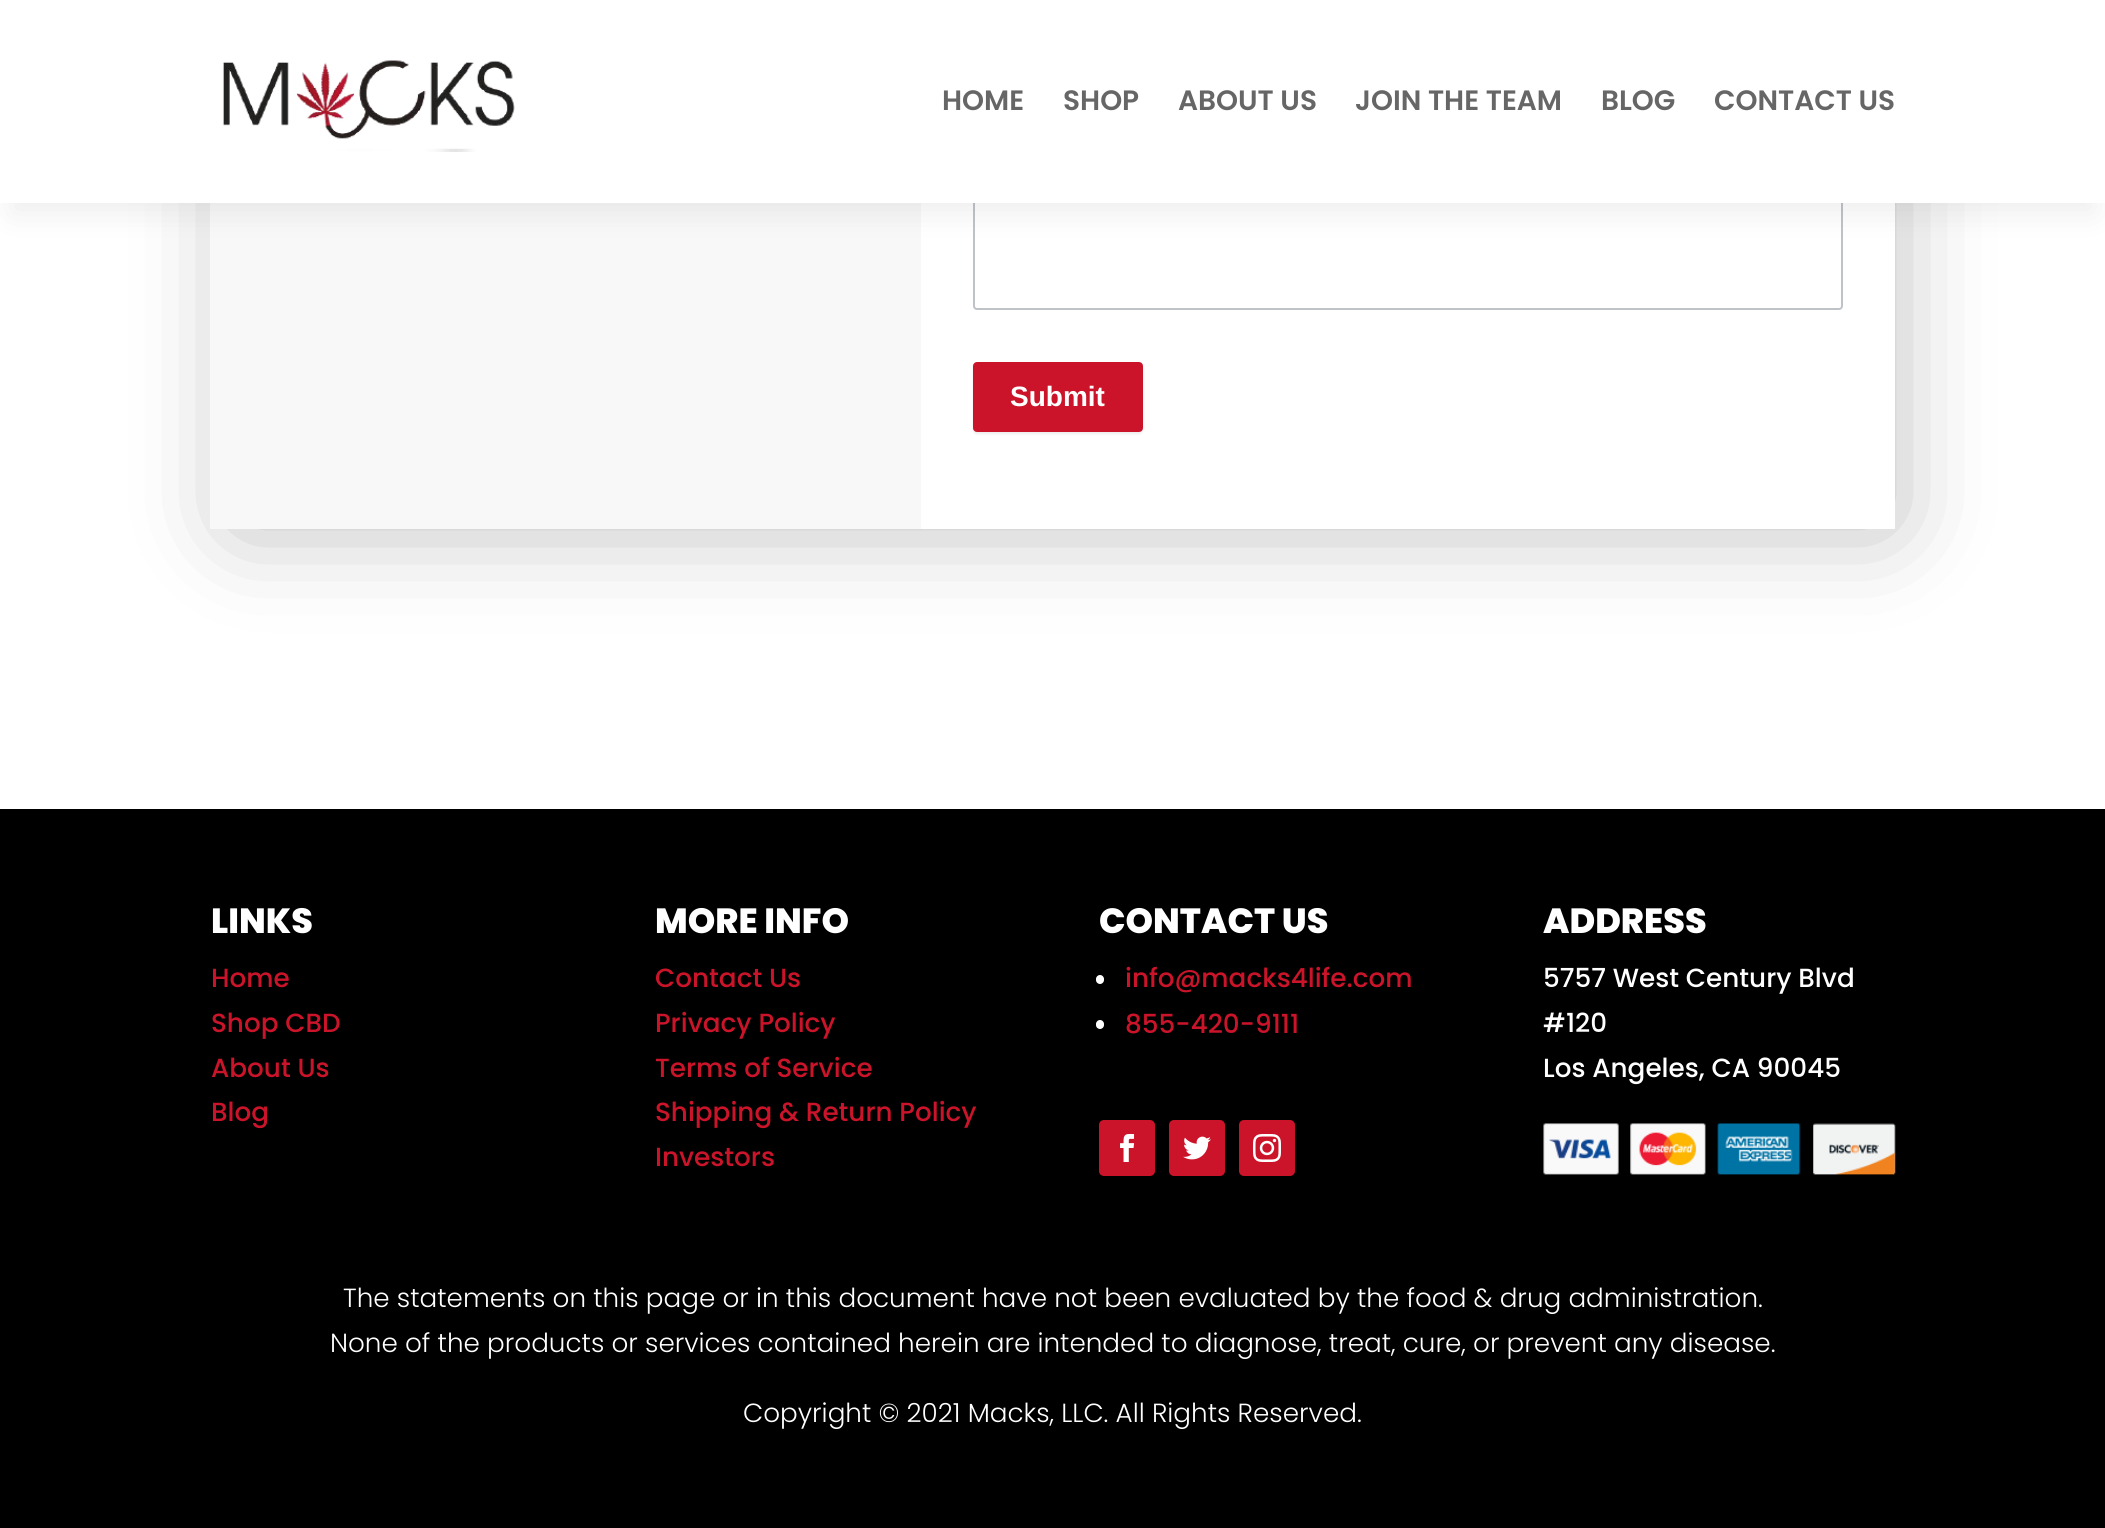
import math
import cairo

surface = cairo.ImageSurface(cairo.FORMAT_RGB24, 2105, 1528)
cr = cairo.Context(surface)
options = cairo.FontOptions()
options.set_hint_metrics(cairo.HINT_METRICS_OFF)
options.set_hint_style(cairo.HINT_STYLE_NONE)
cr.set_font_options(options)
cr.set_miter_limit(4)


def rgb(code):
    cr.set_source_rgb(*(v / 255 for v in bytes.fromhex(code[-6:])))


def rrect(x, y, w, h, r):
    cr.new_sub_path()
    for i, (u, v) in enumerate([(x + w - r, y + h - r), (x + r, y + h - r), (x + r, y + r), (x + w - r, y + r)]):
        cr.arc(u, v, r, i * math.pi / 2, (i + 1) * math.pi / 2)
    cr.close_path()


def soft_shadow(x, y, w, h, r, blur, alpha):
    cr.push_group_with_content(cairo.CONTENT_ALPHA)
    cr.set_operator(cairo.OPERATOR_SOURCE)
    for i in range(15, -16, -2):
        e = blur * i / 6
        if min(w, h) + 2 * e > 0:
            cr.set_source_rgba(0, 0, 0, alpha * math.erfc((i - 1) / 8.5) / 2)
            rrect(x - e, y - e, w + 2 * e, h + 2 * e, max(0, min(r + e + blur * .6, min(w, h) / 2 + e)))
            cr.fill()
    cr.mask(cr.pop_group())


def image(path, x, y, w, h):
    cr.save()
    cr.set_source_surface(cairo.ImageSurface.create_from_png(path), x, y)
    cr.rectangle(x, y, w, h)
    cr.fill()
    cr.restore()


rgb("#ffffff")
cr.paint()
cr.save()
cr.set_fill_rule(cairo.FILL_RULE_EVEN_ODD)
cr.new_path()
cr.move_to(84, 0)
cr.line_to(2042, 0)
cr.line_to(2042, 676)
cr.line_to(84, 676)
cr.close_path()
cr.move_to(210, -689)
cr.line_to(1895, -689)
cr.line_to(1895, 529)
cr.line_to(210, 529)
cr.close_path()
cr.clip()
rgb("#000000")
soft_shadow(238, -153, 1650, 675, 0, 51, 0.3)
cr.restore()
cr.set_source_rgba(0.949, 0.949, 0.949, 0.5)
cr.rectangle(210, 203, 711, 326)
cr.fill()
rrect(974, 129, 868, 180, 3)
rgb("#bfc3c8")
cr.stroke()
rgb("#000000")
soft_shadow(11, 32, 2084, 182, 0, 16, 0.07)
rgb("#ffffff")
cr.rectangle(0, 0, 2105, 203)
cr.fill()
image("img/1.png", 222, 60, 293, 92)
cr.rectangle(921, 528, 974, 1)
cr.fill()
rgb("#eeeeee")
soft_shadow(973, 364, 170, 70, 4, 1, 1)
rgb("#cb142a")
rrect(974, 363, 168, 68, 3)
cr.fill_preserve()
cr.stroke()
rgb("#000000")
cr.rectangle(0, 809, 2105, 719)
cr.fill()
rgb("#ffffff")
rrect(1096, 975, 8, 9, 4)
cr.fill()
rrect(1096, 1020, 8, 9, 4)
cr.fill()
rgb("#cb142a")
rrect(1099, 1120, 56, 56, 5)
cr.fill()
image("img/2.png", 1120, 1134, 15, 28)
rrect(1169, 1120, 56, 56, 5)
cr.fill()
image("img/3.png", 1183, 1136, 28, 24)
rrect(1239, 1120, 56, 56, 5)
cr.fill()
image("img/4.png", 1253, 1134, 28, 28)
image("img/5.png", 1543, 1123, 353, 52)
cr.select_font_face("Poppins SemiBold")
cr.set_font_size(28)
rgb("#666666")
for x, y, s in [
    (942, 110, "HOME"),
    (1063, 110, "SHOP"),
    (1178, 110, "ABOUT US"),
    (1355, 110, "JOIN THE TEAM"),
    (1601, 110, "BLOG"),
    (1714, 110, "CONTACT US"),
]:
    cr.move_to(x, y)
    cr.show_text(s)
cr.select_font_face("Liberation Sans", cairo.FONT_SLANT_NORMAL, cairo.FONT_WEIGHT_BOLD)
rgb("#ffffff")
cr.move_to(1010, 406)
cr.show_text("Submit")
cr.select_font_face("Poppins ExtraBold")
cr.set_font_size(35)
cr.move_to(211, 933)
cr.show_text("LINKS")
cr.select_font_face("Poppins Medium")
cr.set_font_size(26.25)
rgb("#cb142a")
for x, y, s in [
    (211, 987, "Home"),
    (211, 1032, "Shop CBD"),
    (211, 1077, "About Us"),
    (211, 1121, "Blog"),
]:
    cr.move_to(x, y)
    cr.show_text(s)
cr.select_font_face("Poppins ExtraBold")
cr.set_font_size(35)
rgb("#ffffff")
cr.move_to(655, 933)
cr.show_text("MORE INFO")
cr.select_font_face("Poppins Medium")
cr.set_font_size(26.25)
rgb("#cb142a")
for x, y, s in [
    (655, 987, "Contact Us"),
    (655, 1032, "Privacy Policy"),
    (655, 1077, "Terms of Service"),
    (655, 1121, "Shipping & Return Policy"),
    (655, 1166, "Investors"),
]:
    cr.move_to(x, y)
    cr.show_text(s)
cr.select_font_face("Poppins ExtraBold")
cr.set_font_size(35)
rgb("#ffffff")
cr.move_to(1099, 933)
cr.show_text("CONTACT US")
cr.select_font_face("Poppins Medium")
cr.set_font_size(26.25)
rgb("#cb142a")
cr.move_to(1125, 987)
cr.show_text("info@macks4life.com")
cr.move_to(1125, 1033)
cr.show_text("855-420-9111")
cr.select_font_face("Poppins ExtraBold")
cr.set_font_size(35)
rgb("#ffffff")
cr.move_to(1543, 933)
cr.show_text("ADDRESS")
cr.select_font_face("Poppins Medium")
cr.set_font_size(26.25)
for x, y, s in [
    (1543, 987, "5757 West Century Blvd"),
    (1543, 1032, "#120"),
    (1543, 1077, "Los Angeles, CA 90045"),
]:
    cr.move_to(x, y)
    cr.show_text(s)
cr.select_font_face("Poppins Light")
for x, y, s in [
    (343, 1307, "The statements on this page or in this document have not been evaluated by the food & drug administration."),
    (330, 1352, "None of the products or services contained herein are intended to diagnose, treat, cure, or prevent any disease."),
    (743, 1422, "Copyright © 2021 Macks, LLC. All Rights Reserved."),
]:
    cr.move_to(x, y)
    cr.show_text(s)
surface.write_to_png("page.png")
